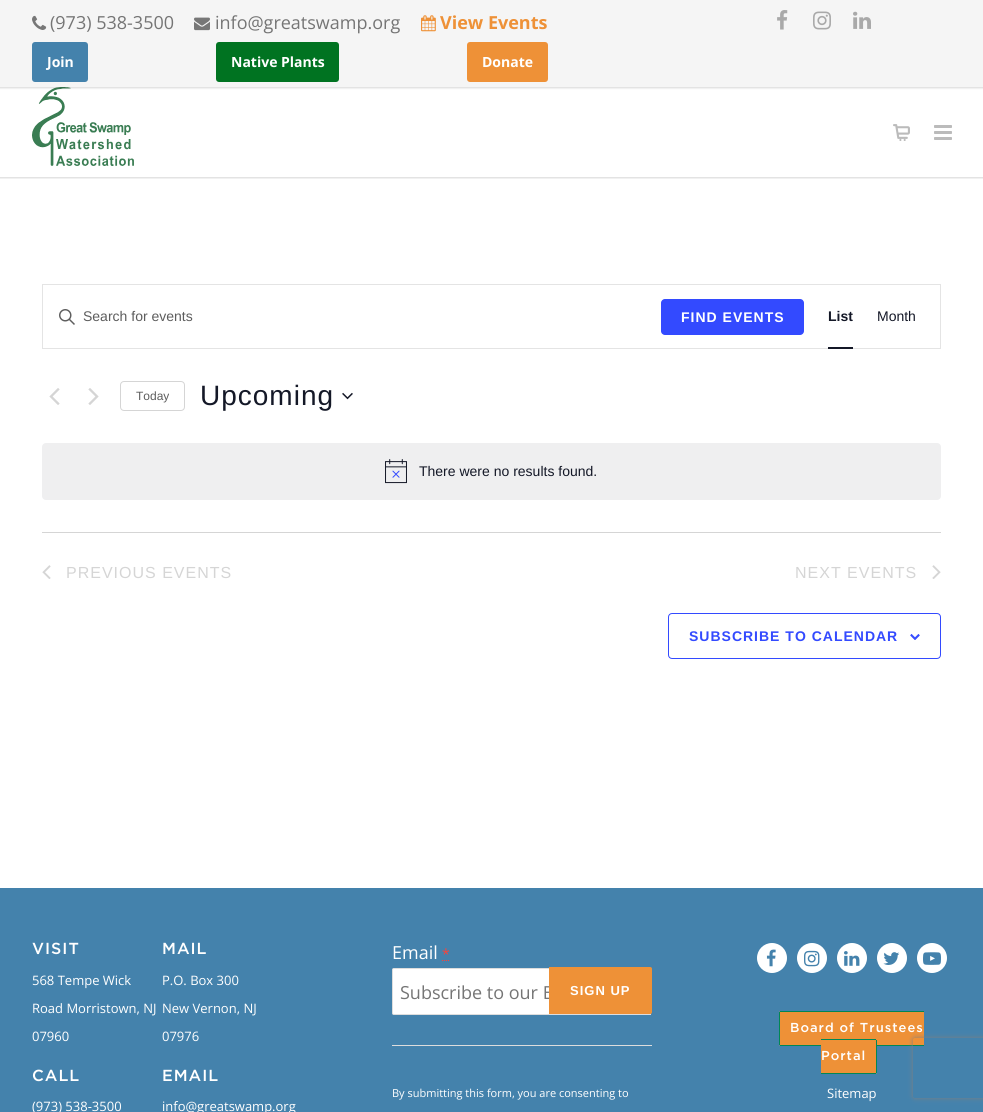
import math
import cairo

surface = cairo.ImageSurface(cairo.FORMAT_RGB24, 983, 1112)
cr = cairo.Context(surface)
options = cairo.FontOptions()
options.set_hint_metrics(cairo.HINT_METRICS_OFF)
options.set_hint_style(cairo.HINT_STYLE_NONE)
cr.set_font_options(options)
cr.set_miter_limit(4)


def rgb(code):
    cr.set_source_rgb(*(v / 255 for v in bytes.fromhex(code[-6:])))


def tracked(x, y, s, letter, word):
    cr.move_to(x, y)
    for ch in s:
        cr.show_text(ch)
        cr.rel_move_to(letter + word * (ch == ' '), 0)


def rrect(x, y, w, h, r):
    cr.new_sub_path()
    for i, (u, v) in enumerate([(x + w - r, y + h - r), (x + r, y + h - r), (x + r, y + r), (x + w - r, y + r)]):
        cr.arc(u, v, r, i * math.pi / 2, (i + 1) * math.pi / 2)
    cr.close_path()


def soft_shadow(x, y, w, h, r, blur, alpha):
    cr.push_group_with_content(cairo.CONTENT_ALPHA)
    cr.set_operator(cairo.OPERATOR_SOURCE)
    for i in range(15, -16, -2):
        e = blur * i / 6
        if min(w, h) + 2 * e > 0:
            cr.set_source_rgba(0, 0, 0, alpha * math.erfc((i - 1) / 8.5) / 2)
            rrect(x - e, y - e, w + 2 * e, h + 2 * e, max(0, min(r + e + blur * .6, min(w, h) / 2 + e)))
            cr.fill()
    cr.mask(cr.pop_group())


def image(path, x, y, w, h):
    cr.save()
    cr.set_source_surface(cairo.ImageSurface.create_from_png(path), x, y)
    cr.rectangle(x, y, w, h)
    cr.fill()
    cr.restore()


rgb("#ffffff")
cr.paint()
cr.save()
cr.rectangle(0, 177, 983, 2)
cr.clip()
rgb("#000000")
soft_shadow(-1, 86, 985, 92, 0, 1, 0.16)
cr.restore()
image("img/7.png", 32, 87, 102, 79)
rgb("#000000")
soft_shadow(-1, -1, 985, 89, 0, 1, 0.16)
rgb("#f5f5f5")
cr.rectangle(0, 0, 983, 87)
cr.fill()
image("img/1.png", 32, 15, 15, 15)
image("img/2.png", 194, 17, 16, 14)
image("img/3.png", 421, 15, 15, 17)
rgb("#4482ac")
rrect(32, 42, 56, 40, 3)
cr.fill()
rgb("#007321")
rrect(216, 42, 123, 40, 3)
cr.fill()
rgb("#ee9137")
rrect(467, 42, 81, 40, 3)
cr.fill()
image("img/4.png", 777, 10, 11, 20)
image("img/5.png", 813, 11, 18, 19)
image("img/6.png", 853, 11, 18, 18)
image("img/8.png", 893, 124, 17, 17)
image("img/9.png", 934, 125, 18, 15)
cr.rectangle(42.5, 284.5, 898, 64)
rgb("#e4e4e4")
cr.set_line_width(1)
cr.stroke()
image("img/10.png", 59, 309, 16, 16)
rgb("#334aff")
rrect(661, 299, 143, 36, 4)
cr.fill()
rgb("#141827")
cr.rectangle(828, 347, 25, 2)
cr.fill()
image("img/11.png", 49, 388, 11, 17)
image("img/12.png", 88, 388, 11, 17)
rrect(120.5, 381.5, 64, 29, 3.5)
rgb("#d5d5d5")
cr.stroke()
image("img/13.png", 342, 392, 11, 8)
rgb("#efeff0")
rrect(42, 443, 899, 57, 4)
cr.fill()
image("img/14.png", 385, 459, 22, 25)
rgb("#d5d5d5")
cr.rectangle(42, 532, 899, 1)
cr.fill()
image("img/15.png", 42, 565, 9, 14)
image("img/16.png", 932, 565, 9, 14)
rrect(668.5, 613.5, 272, 45, 3.5)
rgb("#334aff")
cr.stroke()
image("img/17.png", 910, 634, 10, 6)
rgb("#4482ac")
cr.rectangle(0, 888, 983, 224)
cr.fill()
cr.new_path()
cr.move_to(442, 960.5)
cr.line_to(450, 960.5)
rgb("#ff4136")
cr.set_dash([1, 1])
cr.stroke()
rgb("#ffffff")
cr.new_path()
cr.move_to(394, 968.5)
cr.line_to(650.5, 968.5)
cr.line_to(650.5, 1014.5)
cr.line_to(394, 1014.5)
cr.curve_to(393, 1014.5, 392.5, 1014, 392.5, 1013)
cr.line_to(392.5, 970)
cr.curve_to(392.5, 969, 393, 968.5, 394, 968.5)
cr.close_path()
cr.fill_preserve()
rgb("#dddddd")
cr.set_dash([])
cr.stroke()
cr.rectangle(392, 1045, 260, 1)
cr.fill()
rgb("#ffffff")
cr.arc(772, 958, 15, 0, 2 * math.pi)
cr.fill()
image("img/18.png", 766, 949, 10, 18)
cr.arc(812, 958, 15, 0, 2 * math.pi)
cr.fill()
image("img/19.png", 804, 950, 16, 17)
cr.arc(852, 958, 15, 0, 2 * math.pi)
cr.fill()
image("img/20.png", 844, 951, 16, 15)
cr.arc(892, 958, 15, 0, 2 * math.pi)
cr.fill()
image("img/21.png", 883, 952, 17, 13)
cr.arc(932, 958, 15, 0, 2 * math.pi)
cr.fill()
image("img/22.png", 923, 952, 18, 13)
rgb("#ee9137")
cr.new_path()
cr.move_to(781, 1011)
cr.line_to(924, 1011)
cr.line_to(924, 1046)
cr.line_to(781, 1046)
cr.curve_to(780, 1046, 779, 1045, 779, 1044)
cr.line_to(779, 1013)
cr.curve_to(779, 1012, 780, 1011, 781, 1011)
cr.close_path()
cr.fill()
for x, y, w, h, color in [
    (780, 1011, 144, 1, "#018755"),
    (779, 1012, 1, 33, "#018755"),
    (780, 1045, 144, 1, "#018755"),
]:
    rgb(color)
    cr.rectangle(x, y, w, h)
    cr.fill()
rgb("#ee9137")
cr.new_path()
cr.move_to(821, 1039)
cr.line_to(875, 1039)
cr.curve_to(876, 1039, 877, 1040, 877, 1041)
cr.line_to(877, 1072)
cr.curve_to(877, 1073, 876, 1074, 875, 1074)
cr.line_to(821, 1074)
cr.close_path()
cr.fill()
for x, y, w, h, color in [
    (821, 1039, 55, 1, "#018755"),
    (876, 1040, 1, 33, "#018755"),
    (821, 1073, 55, 1, "#018755"),
]:
    rgb(color)
    cr.rectangle(x, y, w, h)
    cr.fill()
cr.save()
cr.set_fill_rule(cairo.FILL_RULE_EVEN_ODD)
cr.new_path()
cr.move_to(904, 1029)
cr.line_to(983, 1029)
cr.line_to(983, 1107)
cr.line_to(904, 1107)
cr.close_path()
cr.move_to(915, 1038)
cr.line_to(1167, 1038)
cr.curve_to(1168, 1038, 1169, 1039, 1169, 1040)
cr.line_to(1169, 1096)
cr.curve_to(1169, 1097, 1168, 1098, 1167, 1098)
cr.line_to(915, 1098)
cr.curve_to(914, 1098, 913, 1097, 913, 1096)
cr.line_to(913, 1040)
cr.curve_to(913, 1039, 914, 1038, 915, 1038)
cr.close_path()
cr.clip()
rgb("#808080")
soft_shadow(913, 1038, 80, 60, 2, 2.5, 1)
cr.restore()
cr.select_font_face("Open Sans")
cr.set_font_size(18)
rgb("#757575")
cr.move_to(50, 29)
cr.show_text("(973) 538-3500")
cr.move_to(215, 29)
cr.show_text("info@greatswamp.org")
cr.select_font_face("Open Sans", cairo.FONT_SLANT_NORMAL, cairo.FONT_WEIGHT_BOLD)
rgb("#ee9137")
cr.move_to(440, 29)
cr.show_text("View Events")
cr.set_font_size(14)
rgb("#ffffff")
for x, y, s in [
    (47, 67, "Join"),
    (231, 67, "Native Plants"),
    (482, 67, "Donate"),
]:
    cr.move_to(x, y)
    cr.show_text(s)
cr.select_font_face("Liberation Sans")
rgb("#5d5d5d")
cr.move_to(83, 321)
cr.show_text("Search for events")
cr.select_font_face("Liberation Sans", cairo.FONT_SLANT_NORMAL, cairo.FONT_WEIGHT_BOLD)
rgb("#ffffff")
tracked(681, 322, "FIND EVENTS", 1, 0)
rgb("#141827")
cr.move_to(828, 321)
cr.show_text("List")
cr.select_font_face("Liberation Sans")
cr.move_to(877, 321)
cr.show_text("Month")
cr.set_font_size(12)
rgb("#5d5d5d")
cr.move_to(136, 400)
cr.show_text("Today")
cr.set_font_size(28)
rgb("#141827")
tracked(200, 405, "Upcoming", 1, 0)
cr.set_font_size(14)
cr.move_to(419, 476)
cr.show_text("There were no results found.")
cr.set_font_size(16)
rgb("#d5d5d5")
tracked(66, 578, "PREVIOUS EVENTS", 1, 0)
tracked(795, 578, "NEXT EVENTS", 1, 0)
cr.select_font_face("Liberation Sans", cairo.FONT_SLANT_NORMAL, cairo.FONT_WEIGHT_BOLD)
cr.set_font_size(14)
rgb("#334aff")
tracked(689, 641, "SUBSCRIBE TO CALENDAR", 1, 0)
cr.select_font_face("Gotham Medium")
cr.set_font_size(16)
rgb("#ffffff")
tracked(32, 954, "VISIT", 1, 0)
cr.select_font_face("Open Sans")
cr.set_font_size(13)
for x, y, s in [
    (32, 985, "568 Tempe Wick"),
    (32, 1013, "Road Morristown, NJ"),
    (32, 1041, "07960"),
]:
    cr.move_to(x, y)
    cr.show_text(s)
cr.select_font_face("Gotham Medium")
cr.set_font_size(16)
tracked(162, 954, "MAIL", 1, 0)
cr.select_font_face("Open Sans")
cr.set_font_size(13)
for x, y, s in [
    (162, 985, "P.O. Box 300"),
    (162, 1013, "New Vernon, NJ"),
    (162, 1041, "07976"),
]:
    cr.move_to(x, y)
    cr.show_text(s)
cr.select_font_face("Gotham Medium")
cr.set_font_size(16)
tracked(32, 1081, "CALL", 1, 0)
cr.select_font_face("Open Sans")
cr.set_font_size(13)
cr.move_to(32, 1111)
cr.show_text("(973) 538-3500")
cr.select_font_face("Gotham Medium")
cr.set_font_size(16)
tracked(162, 1081, "EMAIL", 1, 0)
cr.select_font_face("Open Sans")
cr.set_font_size(13)
cr.move_to(162, 1111)
cr.show_text("info@greatswamp.org")
cr.set_font_size(18)
cr.move_to(392, 959)
cr.show_text("Email")
cr.set_font_size(14)
rgb("#ff4136")
cr.move_to(442, 959)
cr.show_text("*")
cr.set_font_size(18)
rgb("#757575")
cr.move_to(400, 999)
cr.show_text("Subscribe to our E")
rgb("#ee9137")
cr.new_path()
cr.move_to(549.5, 967.5)
cr.line_to(650, 967.5)
cr.curve_to(651, 967.5, 651.5, 968, 651.5, 969)
cr.line_to(651.5, 1012)
cr.curve_to(651.5, 1013, 651, 1013.5, 650, 1013.5)
cr.line_to(549.5, 1013.5)
cr.close_path()
cr.fill_preserve()
cr.stroke()
cr.select_font_face("Liberation Sans", cairo.FONT_SLANT_NORMAL, cairo.FONT_WEIGHT_BOLD)
cr.set_font_size(13)
rgb("#ffffff")
tracked(570, 995, "SIGN UP", 1, 0)
cr.select_font_face("Open Sans")
cr.set_font_size(11)
cr.move_to(392, 1097)
cr.show_text("By submitting this form, you are consenting to")
cr.select_font_face("Gotham Medium")
cr.set_font_size(13)
tracked(790, 1032, "Board of Trustees", 1, 0)
tracked(821, 1060, "Portal", 1, 0)
cr.select_font_face("Open Sans")
cr.move_to(827, 1098)
cr.show_text("Sitemap")
surface.write_to_png("page.png")
